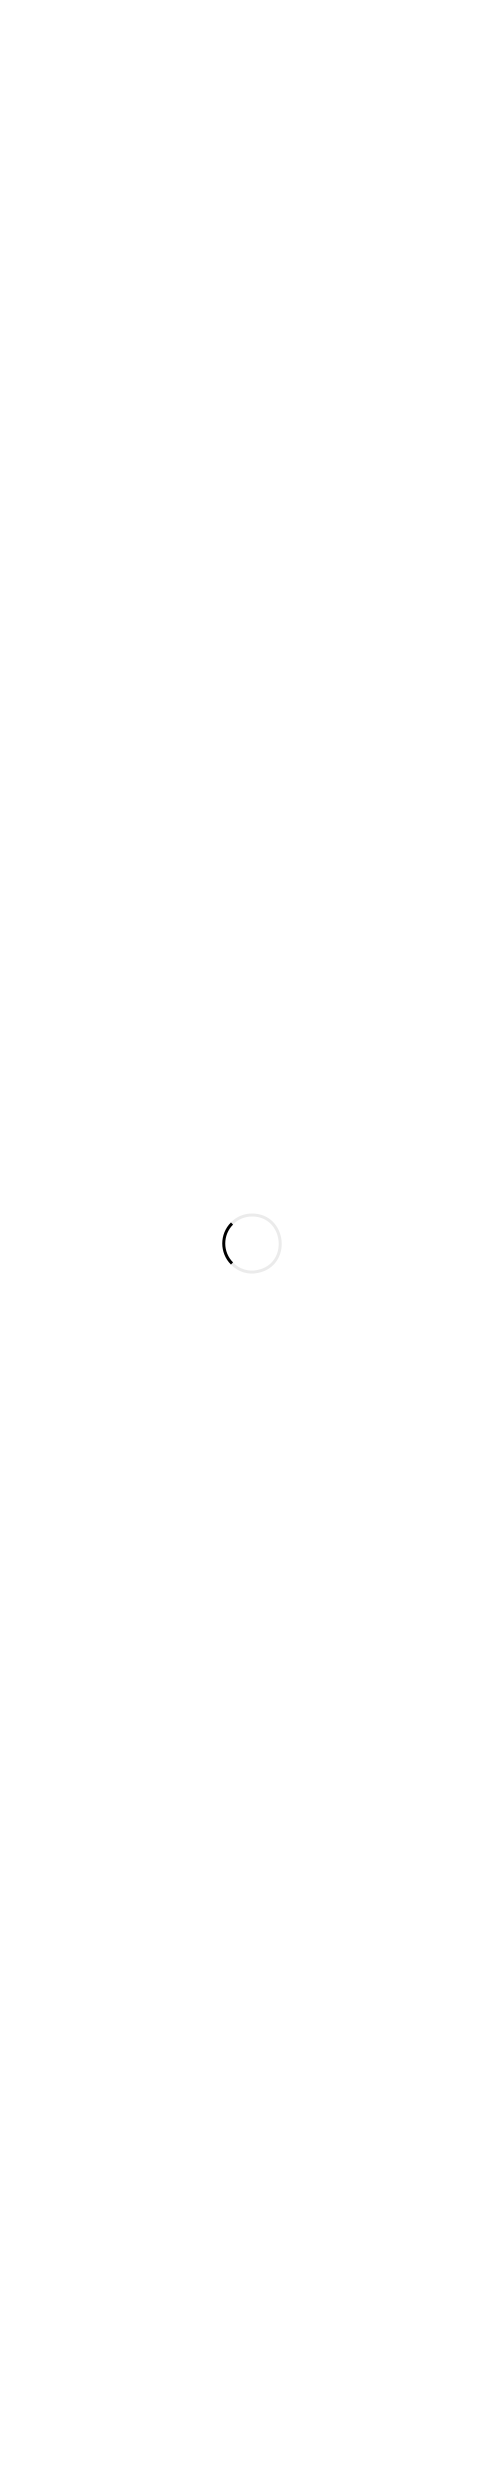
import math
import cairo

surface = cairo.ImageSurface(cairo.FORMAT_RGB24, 502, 2487)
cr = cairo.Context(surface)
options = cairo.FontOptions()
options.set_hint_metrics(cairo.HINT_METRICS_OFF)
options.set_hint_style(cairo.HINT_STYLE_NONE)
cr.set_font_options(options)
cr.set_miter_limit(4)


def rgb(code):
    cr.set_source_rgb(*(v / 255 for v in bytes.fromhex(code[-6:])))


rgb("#ffffff")
cr.paint()
cr.new_path()
cr.move_to(232, 1223.5)
cr.curve_to(237, 1218, 244.5, 1215, 252, 1215)
cr.curve_to(286, 1215, 291, 1265, 257.5, 1271.5)
cr.curve_to(248.5, 1273.5, 238.5, 1270.5, 232, 1263.5)
rgb("#ebebeb")
cr.set_line_width(3)
cr.stroke()
cr.new_path()
cr.move_to(232, 1263.5)
cr.curve_to(221, 1252.5, 221, 1234.5, 232, 1223.5)
rgb("#000000")
cr.stroke()
surface.write_to_png("page.png")
